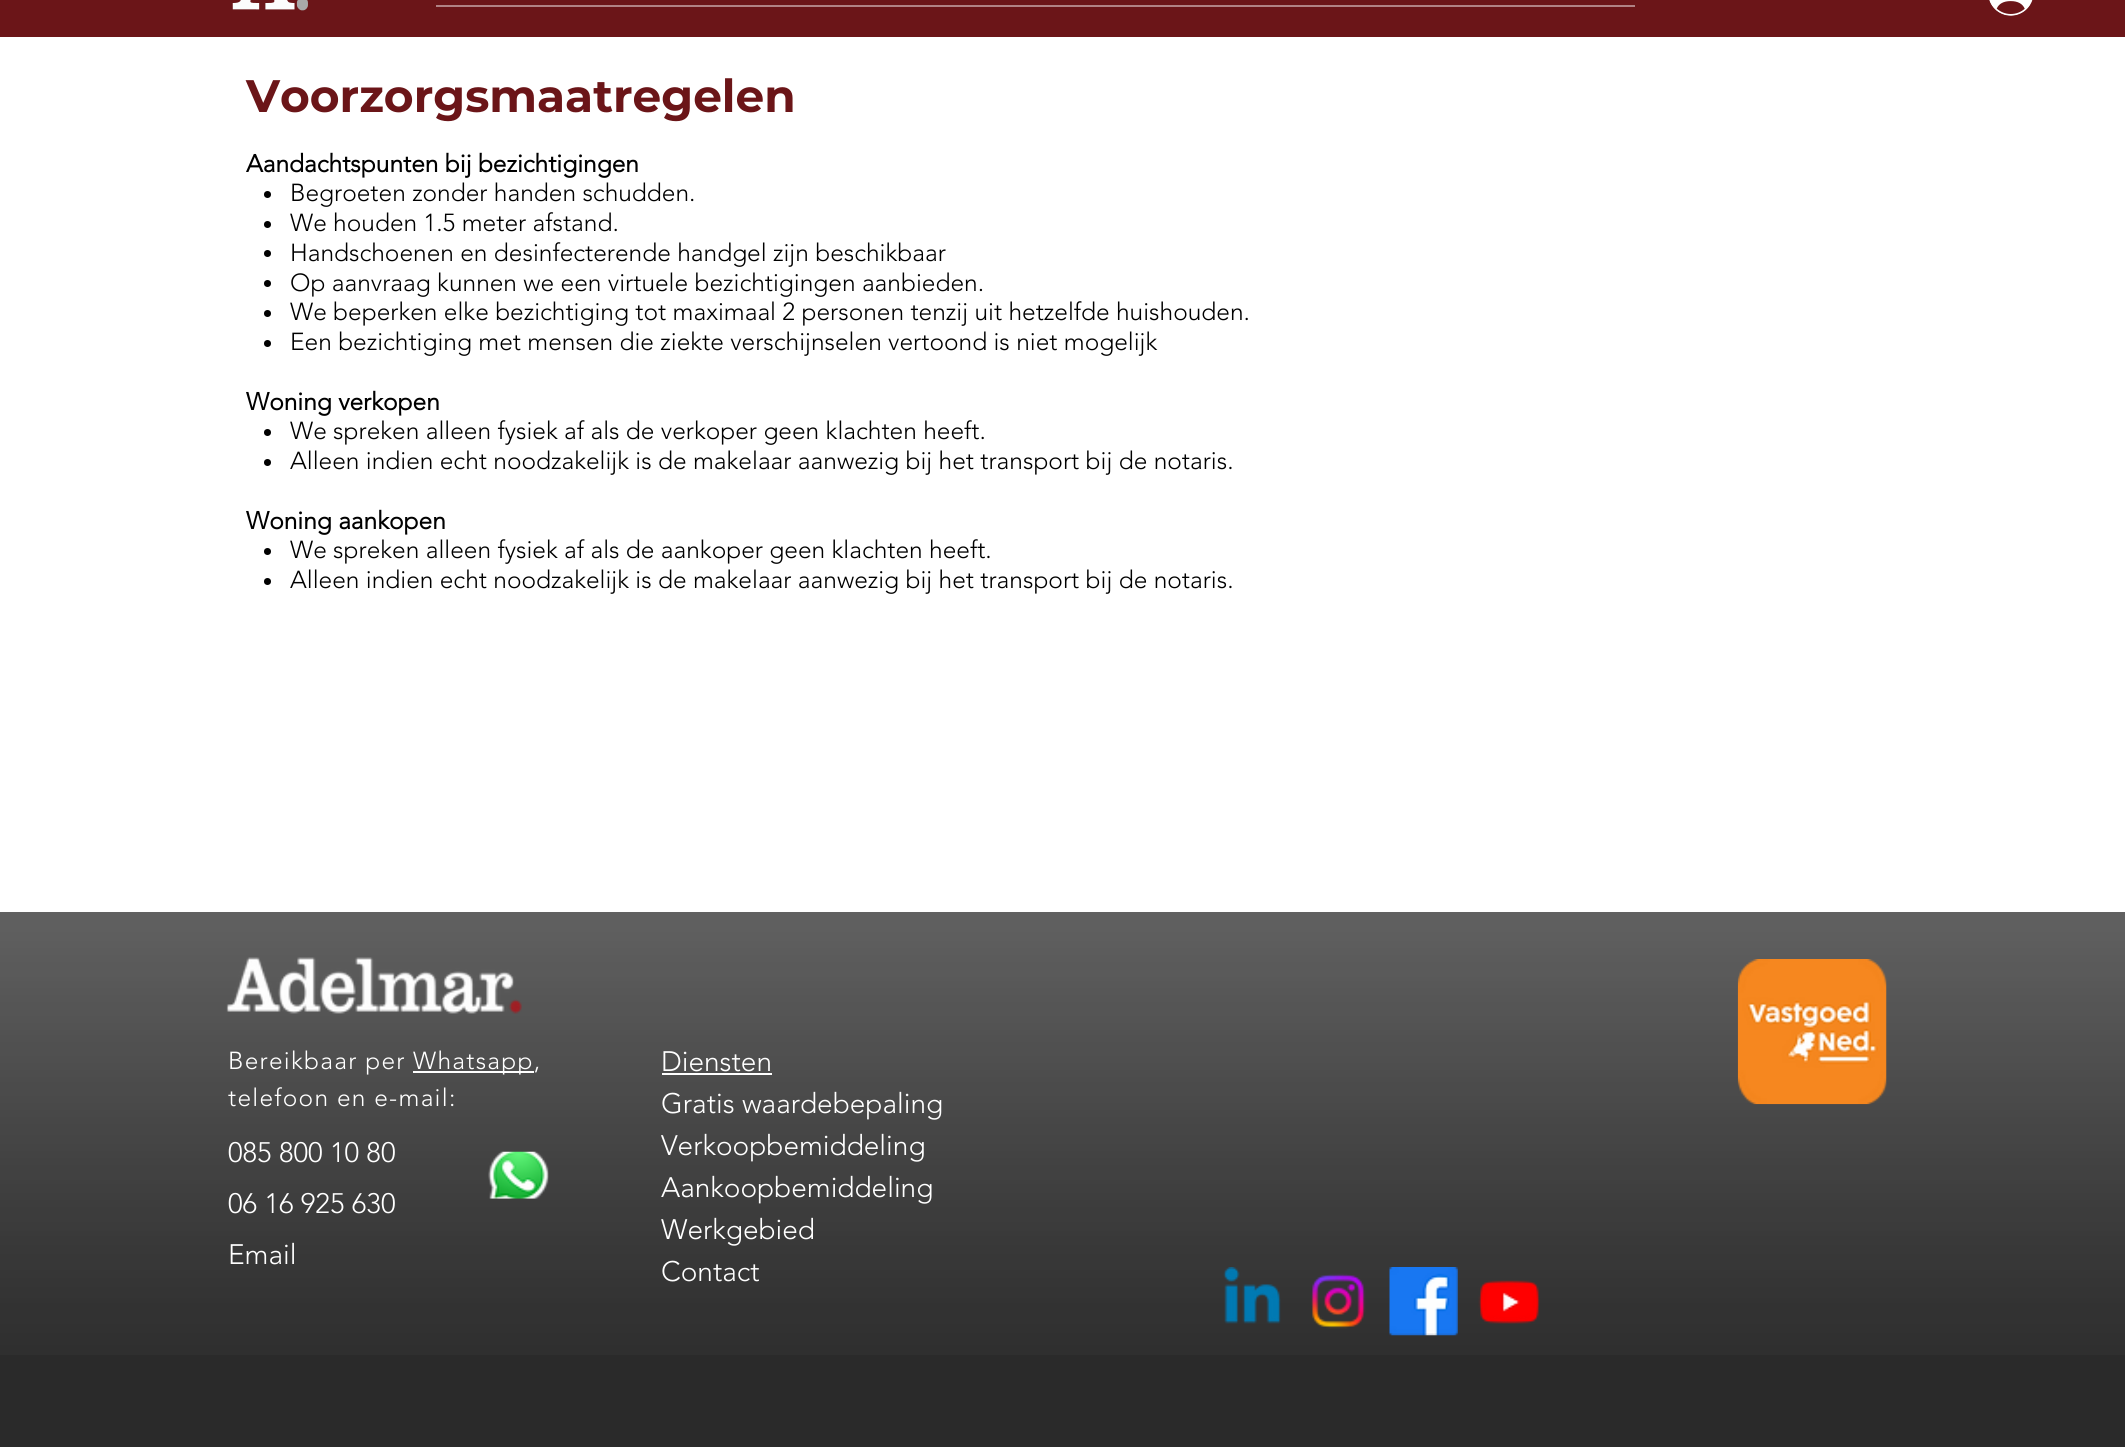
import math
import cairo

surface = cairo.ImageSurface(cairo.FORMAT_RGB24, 2125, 1447)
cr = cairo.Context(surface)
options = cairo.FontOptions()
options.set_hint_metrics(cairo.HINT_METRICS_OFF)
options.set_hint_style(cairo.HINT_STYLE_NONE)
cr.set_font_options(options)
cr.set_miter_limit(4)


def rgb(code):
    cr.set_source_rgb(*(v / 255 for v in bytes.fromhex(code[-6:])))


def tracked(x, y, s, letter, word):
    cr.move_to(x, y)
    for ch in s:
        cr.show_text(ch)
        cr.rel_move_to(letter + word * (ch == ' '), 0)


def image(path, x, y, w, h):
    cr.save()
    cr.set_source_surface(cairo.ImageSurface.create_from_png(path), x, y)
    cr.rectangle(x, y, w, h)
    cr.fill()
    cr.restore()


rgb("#ffffff")
cr.paint()
rgb("#6b1518")
cr.rectangle(0, 0, 2125, 37)
cr.fill()
image("img/1.png", 232, 0, 76, 11)
rgb("#b08284")
cr.rectangle(436, 5, 1199, 2)
cr.fill()
image("img/2.png", 1989, 0, 44, 16)
rgb("#000000")
cr.arc(267.5, 194.5, 3.5, 0, 2 * math.pi)
cr.fill()
cr.arc(267.5, 224.5, 3.5, 0, 2 * math.pi)
cr.fill()
cr.arc(267.5, 253.5, 3.5, 0, 2 * math.pi)
cr.fill()
cr.arc(267.5, 283.5, 3.5, 0, 2 * math.pi)
cr.fill()
cr.arc(267.5, 313.5, 3.5, 0, 2 * math.pi)
cr.fill()
cr.arc(267.5, 343.5, 3.5, 0, 2 * math.pi)
cr.fill()
cr.arc(267.5, 432.5, 3.5, 0, 2 * math.pi)
cr.fill()
cr.arc(267.5, 462.5, 3.5, 0, 2 * math.pi)
cr.fill()
cr.arc(267.5, 551.5, 3.5, 0, 2 * math.pi)
cr.fill()
cr.arc(267.5, 581.5, 3.5, 0, 2 * math.pi)
cr.fill()
rgb("#2a2a2a")
cr.rectangle(0, 912, 2125, 535)
cr.fill()
image("img/3.png", 0, 912, 2125, 443)
image("img/4.png", 226, 957, 296, 57)
image("img/5.png", 1737, 959, 150, 146)
rgb("#ffffff")
cr.rectangle(413, 1071, 121, 2)
cr.fill()
cr.rectangle(662, 1073, 110, 2)
cr.fill()
image("img/6.png", 488, 1151, 61, 48)
image("img/7.png", 1223, 1267, 58, 57)
image("img/8.png", 1311, 1273, 55, 56)
image("img/9.png", 1389, 1267, 69, 69)
image("img/10.png", 1478, 1280, 62, 44)
cr.select_font_face("Montserrat", cairo.FONT_SLANT_NORMAL, cairo.FONT_WEIGHT_BOLD)
cr.set_font_size(45.5)
rgb("#6b1518")
cr.move_to(246, 112)
cr.show_text("Voorzorgsmaatregelen")
cr.select_font_face("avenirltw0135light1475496", cairo.FONT_SLANT_NORMAL, cairo.FONT_WEIGHT_BOLD)
cr.set_font_size(24.5)
rgb("#000000")
cr.move_to(246, 172)
cr.show_text("Aandachtspunten bij bezichtigingen")
cr.select_font_face("avenirltw0135light1475496 Light")
for x, y, s in [
    (290, 201, "Begroeten zonder handen schudden."),
    (290, 231, "We houden 1.5 meter afstand."),
    (290, 261, "Handschoenen en desinfecterende handgel zijn beschikbaar"),
    (290, 291, "Op aanvraag kunnen we een virtuele bezichtigingen aanbieden."),
    (290, 320, "We beperken elke bezichtiging tot maximaal 2 personen tenzij uit hetzelfde huishouden."),
    (290, 350, "Een bezichtiging met mensen die ziekte verschijnselen vertoond is niet mogelijk"),
]:
    cr.move_to(x, y)
    cr.show_text(s)
cr.select_font_face("avenirltw0135light1475496", cairo.FONT_SLANT_NORMAL, cairo.FONT_WEIGHT_BOLD)
cr.move_to(246, 410)
cr.show_text("Woning verkopen")
cr.select_font_face("avenirltw0135light1475496 Light")
cr.move_to(290, 439)
cr.show_text("We spreken alleen fysiek af als de verkoper geen klachten heeft.")
cr.move_to(290, 469)
cr.show_text("Alleen indien echt noodzakelijk is de makelaar aanwezig bij het transport bij de notaris.")
cr.select_font_face("avenirltw0135light1475496", cairo.FONT_SLANT_NORMAL, cairo.FONT_WEIGHT_BOLD)
cr.move_to(246, 529)
cr.show_text("Woning aankopen")
cr.select_font_face("avenirltw0135light1475496 Light")
cr.move_to(290, 558)
cr.show_text("We spreken alleen fysiek af als de aankoper geen klachten heeft.")
cr.move_to(290, 588)
cr.show_text("Alleen indien echt noodzakelijk is de makelaar aanwezig bij het transport bij de notaris.")
rgb("#ffffff")
for x, y, s in [
    (228, 1069, "Bereikbaar per"),
    (413, 1069, "Whatsapp,"),
    (228, 1106, "telefoon en e-mail:"),
]:
    tracked(x, y, s, 1.25, 0)
cr.set_font_size(28)
for x, y, s in [
    (661, 1071, "Diensten"),
    (661, 1113, "Gratis waardebepaling"),
    (661, 1155, "Verkoopbemiddeling"),
    (661, 1197, "Aankoopbemiddeling"),
    (661, 1239, "Werkgebied"),
    (661, 1281, "Contact"),
    (228, 1162, "085 800 10 80"),
    (228, 1213, "06 16 925 630"),
    (228, 1264, "Email"),
]:
    cr.move_to(x, y)
    cr.show_text(s)
surface.write_to_png("page.png")
